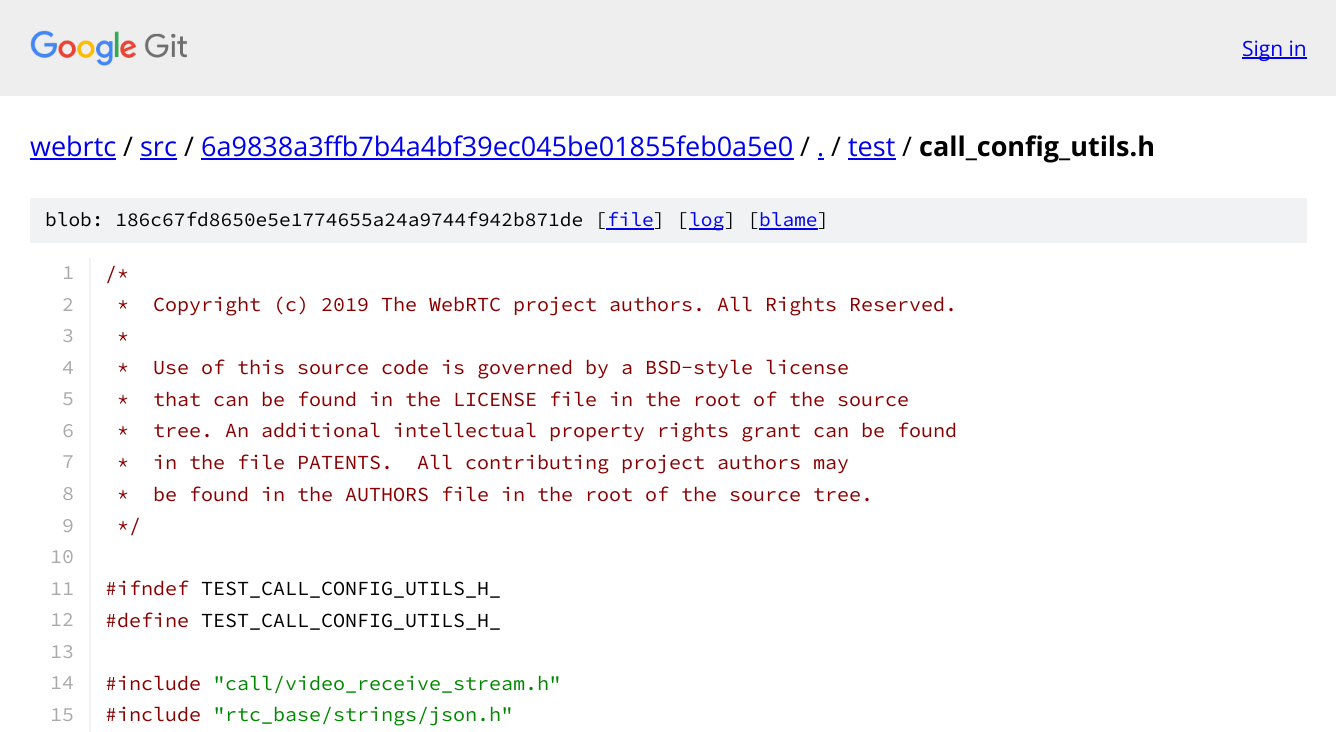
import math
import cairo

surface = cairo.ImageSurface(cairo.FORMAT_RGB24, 1336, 732)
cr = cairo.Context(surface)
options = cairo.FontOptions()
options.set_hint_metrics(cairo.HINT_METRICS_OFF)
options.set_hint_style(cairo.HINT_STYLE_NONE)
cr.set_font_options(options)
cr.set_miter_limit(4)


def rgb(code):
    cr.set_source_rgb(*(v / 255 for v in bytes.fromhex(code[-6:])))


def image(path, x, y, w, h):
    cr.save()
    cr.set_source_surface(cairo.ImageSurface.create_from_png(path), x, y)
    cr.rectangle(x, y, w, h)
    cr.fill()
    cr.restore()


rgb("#ffffff")
cr.paint()
rgb("#eeeeee")
cr.rectangle(0, 0, 1336, 96)
cr.fill()
image("img/1.png", 30, 30, 157, 36)
for x, y, w, h, color in [
    (1242, 57, 65, 2, "#0000ee"),
    (30, 158, 86, 2, "#0000ee"),
    (140, 158, 37, 2, "#0000ee"),
    (201, 158, 593, 2, "#0000ee"),
    (818, 158, 6, 2, "#0000ee"),
    (848, 158, 48, 2, "#0000ee"),
    (30, 198, 1277, 45, "#f1f2f3"),
    (606, 228, 48, 2, "#0000ee"),
    (689, 228, 34, 2, "#0000ee"),
    (759, 228, 59, 2, "#0000ee"),
    (89, 258, 2, 474, "#f1f2f3"),
]:
    rgb(color)
    cr.rectangle(x, y, w, h)
    cr.fill()
cr.select_font_face("Open Sans")
cr.set_font_size(21)
rgb("#0000ee")
cr.move_to(1242, 56)
cr.show_text("Sign in")
cr.set_font_size(27)
cr.move_to(30, 156)
cr.show_text("webrtc")
rgb("#000000")
cr.move_to(123, 156)
cr.show_text("/")
rgb("#0000ee")
cr.move_to(140, 156)
cr.show_text("src")
rgb("#000000")
cr.move_to(184, 156)
cr.show_text("/")
rgb("#0000ee")
cr.move_to(201, 156)
cr.show_text("6a9838a3ffb7b4a4bf39ec045be01855feb0a5e0")
rgb("#000000")
cr.move_to(800, 156)
cr.show_text("/")
rgb("#0000ee")
cr.move_to(817, 156)
cr.show_text(".")
rgb("#000000")
cr.move_to(831, 156)
cr.show_text("/")
rgb("#0000ee")
cr.move_to(848, 156)
cr.show_text("test")
rgb("#000000")
cr.move_to(902, 156)
cr.show_text("/")
cr.select_font_face("Open Sans", cairo.FONT_SLANT_NORMAL, cairo.FONT_WEIGHT_BOLD)
cr.move_to(919, 156)
cr.show_text("call_config_utils.h")
cr.select_font_face("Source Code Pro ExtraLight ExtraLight")
cr.set_font_size(19.5)
cr.move_to(45, 226)
cr.show_text("blob: 186c67fd8650e5e1774655a24a9744f942b871de [")
rgb("#0000ee")
cr.move_to(607, 226)
cr.show_text("file")
rgb("#000000")
cr.move_to(653, 226)
cr.show_text("] [")
rgb("#0000ee")
cr.move_to(689, 226)
cr.show_text("log")
rgb("#000000")
cr.move_to(724, 226)
cr.show_text("] [")
rgb("#0000ee")
cr.move_to(759, 226)
cr.show_text("blame")
rgb("#000000")
cr.move_to(817, 226)
cr.show_text("]")
cr.set_font_size(20)
rgb("#aaaaaa")
cr.move_to(62, 279)
cr.show_text("1")
rgb("#880000")
cr.move_to(105, 280)
cr.show_text("/*")
rgb("#aaaaaa")
cr.move_to(62, 311)
cr.show_text("2")
rgb("#880000")
cr.move_to(117, 311)
cr.show_text("*  Copyright (c) 2019 The WebRTC project authors. All Rights Reserved.")
rgb("#aaaaaa")
cr.move_to(62, 342)
cr.show_text("3")
rgb("#880000")
cr.move_to(117, 343)
cr.show_text("*")
rgb("#aaaaaa")
cr.move_to(62, 374)
cr.show_text("4")
rgb("#880000")
cr.move_to(117, 374)
cr.show_text("*  Use of this source code is governed by a BSD-style license")
rgb("#aaaaaa")
cr.move_to(62, 405)
cr.show_text("5")
rgb("#880000")
cr.move_to(117, 406)
cr.show_text("*  that can be found in the LICENSE file in the root of the source")
rgb("#aaaaaa")
cr.move_to(62, 437)
cr.show_text("6")
rgb("#880000")
cr.move_to(117, 437)
cr.show_text("*  tree. An additional intellectual property rights grant can be found")
rgb("#aaaaaa")
cr.move_to(62, 468)
cr.show_text("7")
rgb("#880000")
cr.move_to(117, 469)
cr.show_text("*  in the file PATENTS.  All contributing project authors may")
rgb("#aaaaaa")
cr.move_to(62, 500)
cr.show_text("8")
rgb("#880000")
cr.move_to(117, 501)
cr.show_text("*  be found in the AUTHORS file in the root of the source tree.")
rgb("#aaaaaa")
cr.move_to(62, 532)
cr.show_text("9")
rgb("#880000")
cr.move_to(117, 532)
cr.show_text("*/")
rgb("#aaaaaa")
cr.move_to(50, 563)
cr.show_text("10")
cr.move_to(50, 595)
cr.show_text("11")
rgb("#880000")
cr.move_to(105, 595)
cr.show_text("#ifndef")
rgb("#000000")
cr.move_to(201, 595)
cr.show_text("TEST_CALL_CONFIG_UTILS_H_")
rgb("#aaaaaa")
cr.move_to(50, 626)
cr.show_text("12")
rgb("#880000")
cr.move_to(105, 627)
cr.show_text("#define")
rgb("#000000")
cr.move_to(201, 627)
cr.show_text("TEST_CALL_CONFIG_UTILS_H_")
rgb("#aaaaaa")
cr.move_to(50, 658)
cr.show_text("13")
cr.move_to(50, 689)
cr.show_text("14")
rgb("#880000")
cr.move_to(105, 690)
cr.show_text("#include")
rgb("#008800")
cr.move_to(213, 690)
cr.show_text("\"call/video_receive_stream.h\"")
rgb("#aaaaaa")
cr.move_to(50, 721)
cr.show_text("15")
rgb("#880000")
cr.move_to(105, 721)
cr.show_text("#include")
rgb("#008800")
cr.move_to(213, 721)
cr.show_text("\"rtc_base/strings/json.h\"")
surface.write_to_png("page.png")
